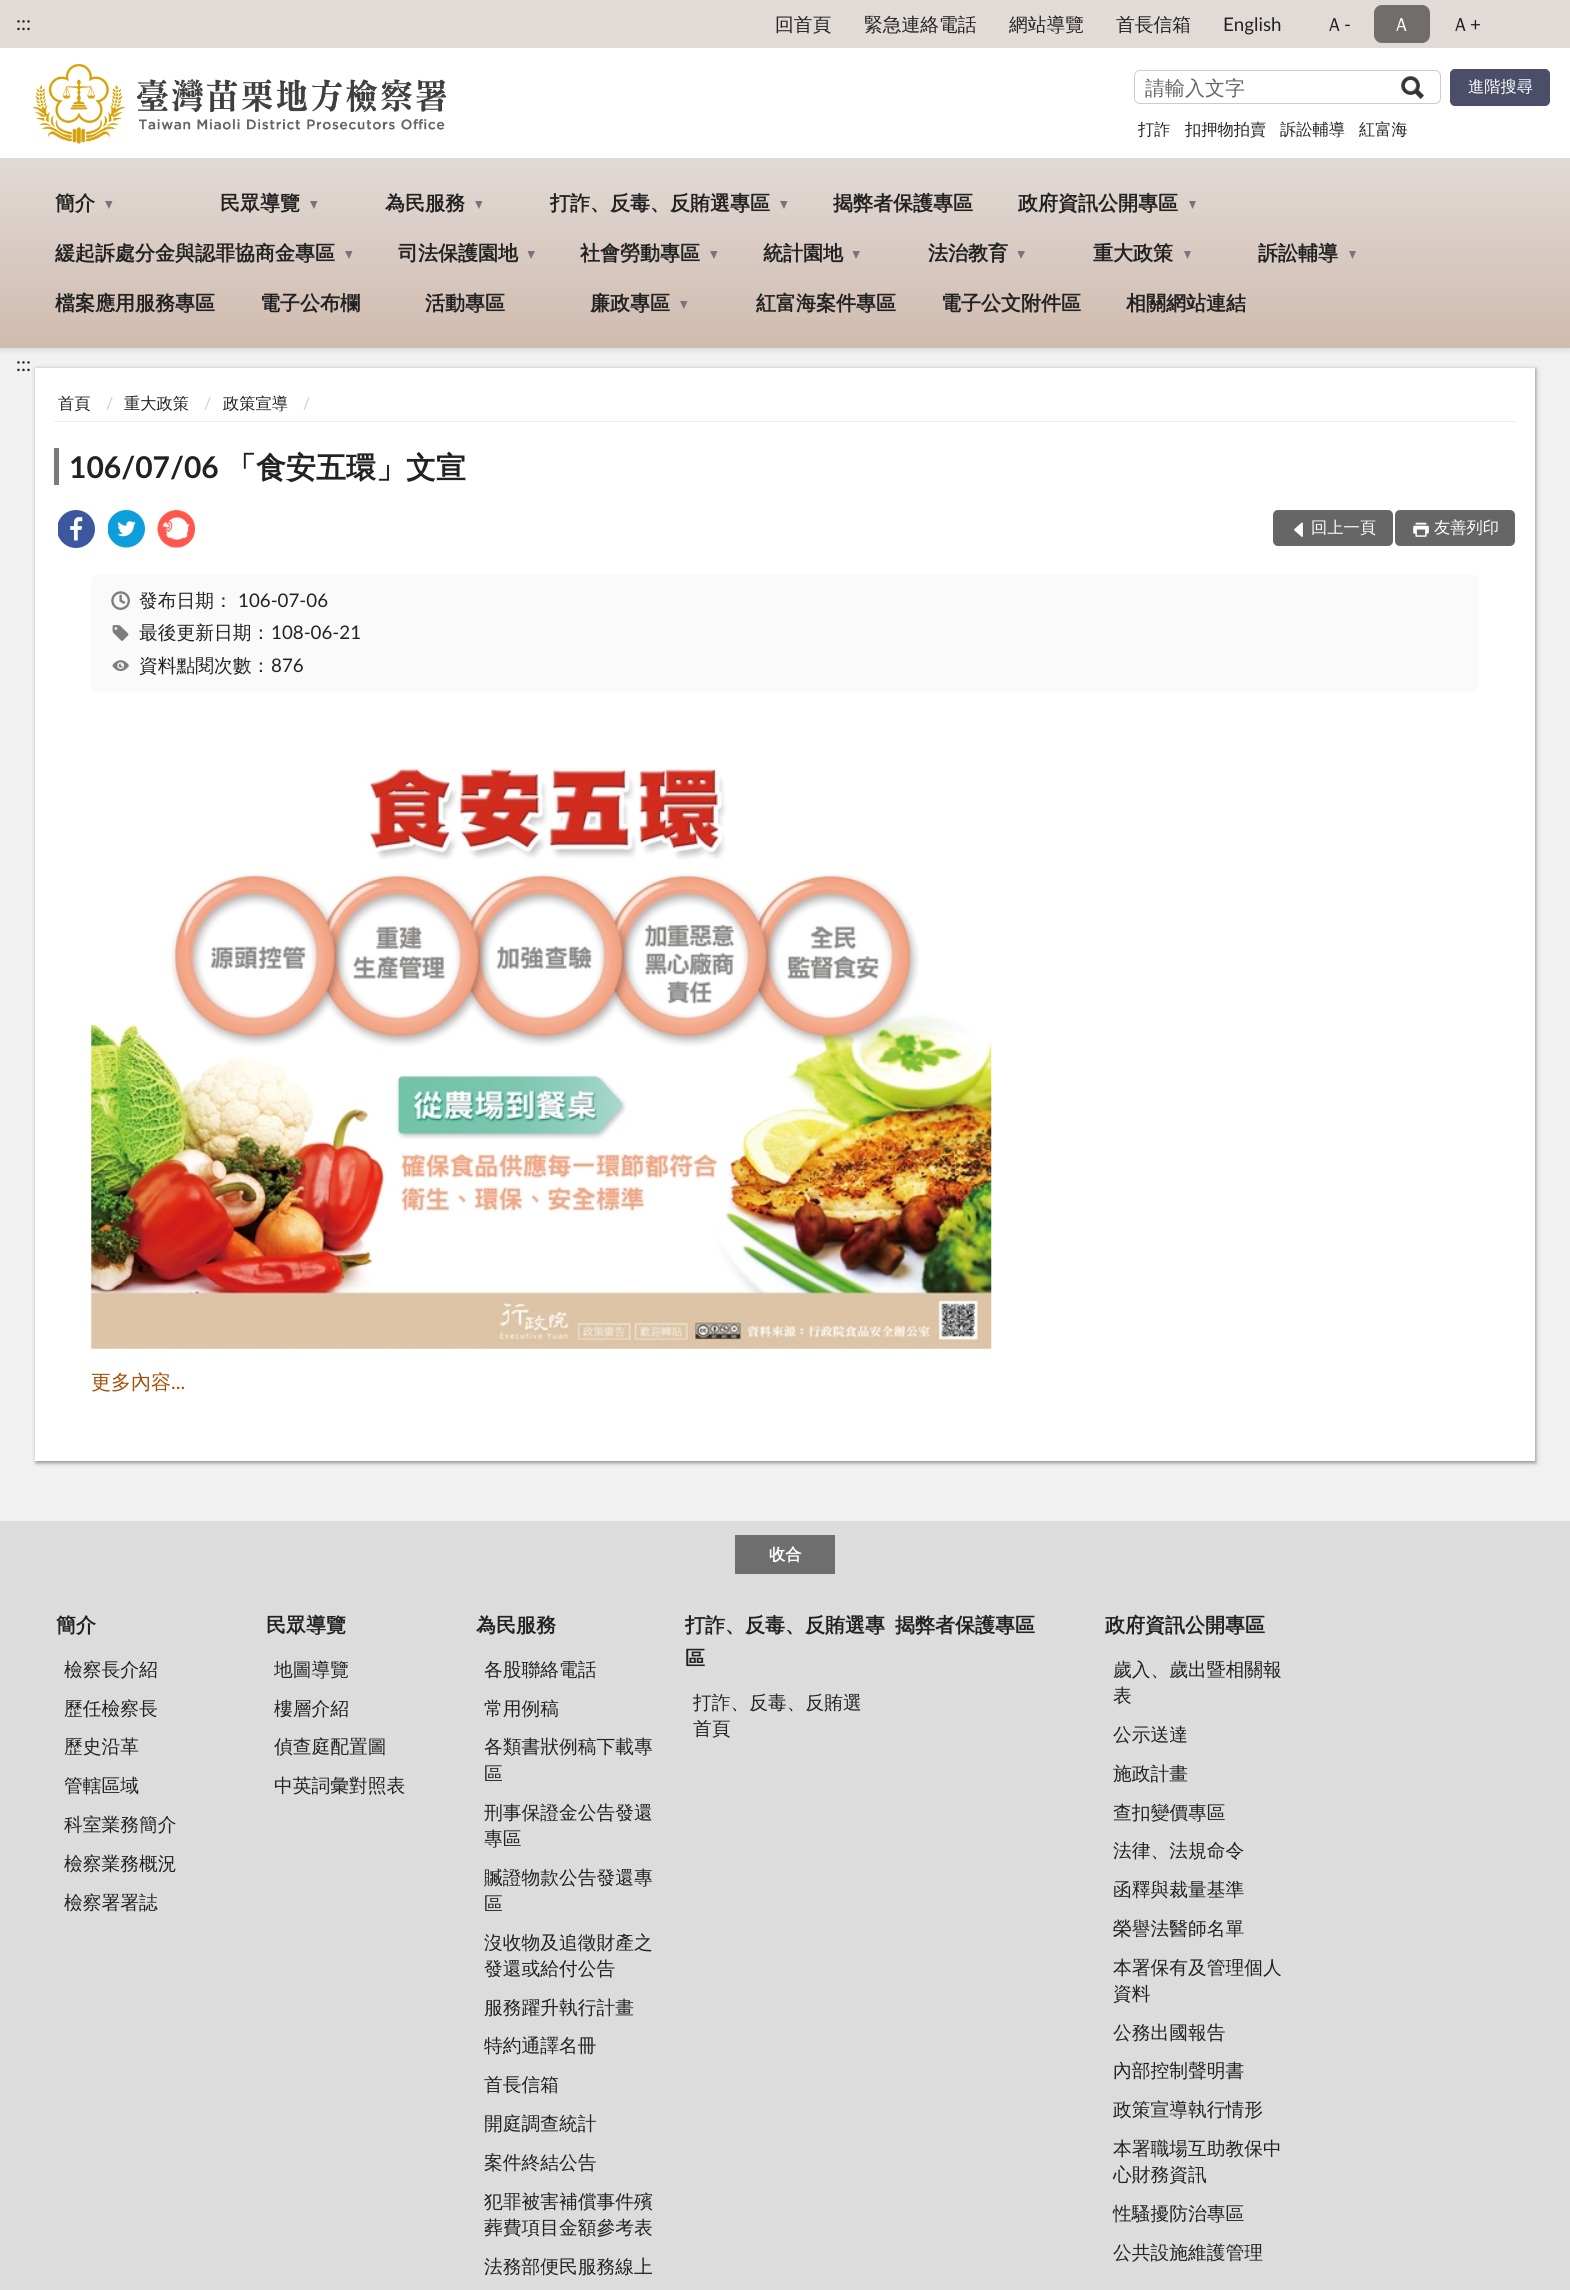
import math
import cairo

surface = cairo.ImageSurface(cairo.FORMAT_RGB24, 1570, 2290)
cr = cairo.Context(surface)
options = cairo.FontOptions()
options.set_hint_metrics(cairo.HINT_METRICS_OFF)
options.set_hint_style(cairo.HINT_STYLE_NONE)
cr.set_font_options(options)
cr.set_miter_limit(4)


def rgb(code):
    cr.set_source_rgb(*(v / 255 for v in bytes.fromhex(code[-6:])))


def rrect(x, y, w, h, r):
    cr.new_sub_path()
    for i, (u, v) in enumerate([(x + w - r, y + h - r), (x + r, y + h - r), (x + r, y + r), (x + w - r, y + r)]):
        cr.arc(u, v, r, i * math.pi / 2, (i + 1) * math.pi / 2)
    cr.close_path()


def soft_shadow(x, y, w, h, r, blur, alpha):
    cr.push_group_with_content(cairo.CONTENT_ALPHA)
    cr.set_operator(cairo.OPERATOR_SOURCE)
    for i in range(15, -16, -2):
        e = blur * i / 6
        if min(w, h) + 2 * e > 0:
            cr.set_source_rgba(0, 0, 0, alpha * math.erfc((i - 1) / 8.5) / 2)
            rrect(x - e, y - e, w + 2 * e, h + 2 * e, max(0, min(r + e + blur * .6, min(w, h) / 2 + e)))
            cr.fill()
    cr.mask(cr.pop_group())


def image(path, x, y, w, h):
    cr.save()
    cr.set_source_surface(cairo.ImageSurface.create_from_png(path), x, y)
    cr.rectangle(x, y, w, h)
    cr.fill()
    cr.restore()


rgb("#f1f1f1")
cr.paint()
rgb("#000000")
soft_shadow(0, 3, 1570, 347, 0, 3, 0.1)
rgb("#ffffff")
cr.rectangle(0, 48, 1570, 110)
cr.fill()
rgb("#e1dad6")
cr.rectangle(0, 0, 1570, 48)
cr.fill()
rgb("#716d6b")
rrect(1374, 5, 56, 38, 8)
cr.fill()
image("img/1.png", 32, 64, 415, 80)
rrect(1134.5, 70.5, 306, 33, 5.5)
rgb("#cccccc")
cr.set_line_width(1)
cr.stroke()
image("img/2.png", 1401, 76, 23, 23)
rgb("#4a4e69")
rrect(1450.5, 69.5, 99, 36, 4.5)
cr.fill_preserve()
cr.stroke()
gradient = cairo.LinearGradient(785, 157, 785, 348)
gradient.add_color_stop_rgba(0, 0.882, 0.855, 0.839, 1)
gradient.add_color_stop_rgba(1, 0.816, 0.733, 0.686, 1)
cr.set_source(gradient)
cr.rectangle(0, 158, 1570, 190)
cr.fill()
rgb("#80707d")
cr.new_path()
cr.move_to(105, 201)
cr.line_to(112.5, 201)
cr.line_to(109, 209)
cr.close_path()
cr.fill()
cr.new_path()
cr.move_to(310, 201)
cr.line_to(317.5, 201)
cr.line_to(314, 209)
cr.close_path()
cr.fill()
cr.new_path()
cr.move_to(475, 201)
cr.line_to(482.5, 201)
cr.line_to(479, 209)
cr.close_path()
cr.fill()
cr.new_path()
cr.move_to(780, 201)
cr.line_to(787.5, 201)
cr.line_to(784, 209)
cr.close_path()
cr.fill()
cr.new_path()
cr.move_to(1189, 201)
cr.line_to(1196, 201)
cr.line_to(1192.5, 209)
cr.close_path()
cr.fill()
cr.new_path()
cr.move_to(345, 251)
cr.line_to(352.5, 251)
cr.line_to(349, 259)
cr.close_path()
cr.fill()
cr.new_path()
cr.move_to(527.5, 251)
cr.line_to(535, 251)
cr.line_to(531, 259)
cr.close_path()
cr.fill()
cr.new_path()
cr.move_to(710, 251)
cr.line_to(717.5, 251)
cr.line_to(714, 259)
cr.close_path()
cr.fill()
cr.new_path()
cr.move_to(852.5, 251)
cr.line_to(860, 251)
cr.line_to(856, 259)
cr.close_path()
cr.fill()
cr.new_path()
cr.move_to(1017.5, 251)
cr.line_to(1025, 251)
cr.line_to(1021, 259)
cr.close_path()
cr.fill()
cr.new_path()
cr.move_to(1184, 251)
cr.line_to(1191, 251)
cr.line_to(1187.5, 259)
cr.close_path()
cr.fill()
cr.new_path()
cr.move_to(1349, 251)
cr.line_to(1356, 251)
cr.line_to(1352.5, 259)
cr.close_path()
cr.fill()
cr.new_path()
cr.move_to(680, 301)
cr.line_to(687.5, 301)
cr.line_to(684, 309)
cr.close_path()
cr.fill()
rgb("#000000")
soft_shadow(36, 369, 1500, 1094, 0, 2, 0.4)
for x, y, w, h, color in [
    (35, 368, 1500, 1093, "#ffffff"),
    (54, 421, 1462, 1, "#eeeeee"),
    (54, 448, 5, 37, "#7c7a7a"),
]:
    rgb(color)
    cr.rectangle(x, y, w, h)
    cr.fill()
image("img/3.png", 58, 510, 37, 38)
image("img/4.png", 108, 510, 37, 38)
image("img/5.png", 157, 510, 38, 38)
rgb("#666666")
rrect(1273, 510, 120, 36, 5)
cr.fill()
image("img/6.png", 1294, 522, 9, 15)
rrect(1395, 510, 120, 36, 5)
cr.fill()
image("img/7.png", 1413, 522, 16, 15)
rgb("#fafafa")
rrect(91, 574, 1388, 119, 8)
cr.fill()
image("img/8.png", 111, 591, 19, 19)
image("img/9.png", 112, 625, 17, 16)
image("img/10.png", 112, 660, 17, 12)
image("img/11.png", 91, 768, 901, 581)
rgb("#dcdcdc")
cr.rectangle(0, 1521, 1570, 769)
cr.fill()
rgb("#6e6e6e")
cr.rectangle(735, 1535, 100, 39)
cr.fill()
cr.select_font_face("Lato")
cr.set_font_size(20)
rgb("#222222")
cr.move_to(16, 30)
cr.show_text(":::")
cr.select_font_face("WenQuanYi Zen Hei Medium")
cr.set_font_size(18.75)
for x, y, s in [
    (775, 31, "回首頁"),
    (864, 31, "緊急連絡電話"),
    (1009, 31, "網站導覽"),
    (1116, 31, "首長信箱"),
]:
    cr.move_to(x, y)
    cr.show_text(s)
cr.select_font_face("Lato")
cr.move_to(1223, 31)
cr.show_text("English")
cr.select_font_face("WenQuanYi Zen Hei Medium")
cr.move_to(1325, 31)
cr.show_text("Ａ")
cr.select_font_face("Lato")
cr.move_to(1344, 31)
cr.show_text("-")
cr.select_font_face("WenQuanYi Zen Hei Medium")
rgb("#ffffff")
cr.move_to(1392, 31)
cr.show_text("Ａ")
rgb("#222222")
cr.move_to(1451, 31)
cr.show_text("Ａ")
cr.select_font_face("Lato")
cr.move_to(1470, 31)
cr.show_text("+")
cr.select_font_face("WenQuanYi Zen Hei Medium")
cr.set_font_size(20)
rgb("#666666")
cr.move_to(1145, 95)
cr.show_text("請輸入文字")
cr.set_font_size(16.25)
rgb("#ffffff")
cr.move_to(1468, 92)
cr.show_text("進階搜尋")
rgb("#222222")
for x, y, s in [
    (1138, 135, "打詐"),
    (1185, 135, "扣押物拍賣"),
    (1280, 135, "訴訟輔導"),
    (1359, 135, "紅富海"),
]:
    cr.move_to(x, y)
    cr.show_text(s)
cr.select_font_face("WenQuanYi Zen Hei", cairo.FONT_SLANT_NORMAL, cairo.FONT_WEIGHT_BOLD)
cr.set_font_size(20)
for x, y, s in [
    (55, 210, "簡介"),
    (220, 210, "民眾導覽"),
    (385, 210, "為民服務"),
    (550, 210, "打詐、反毒、反賄選專區"),
    (833, 210, "揭弊者保護專區"),
    (1018, 210, "政府資訊公開專區"),
    (55, 260, "緩起訴處分金與認罪協商金專區"),
    (398, 260, "司法保護園地"),
    (580, 260, "社會勞動專區"),
    (763, 260, "統計園地"),
    (928, 260, "法治教育"),
    (1093, 260, "重大政策"),
    (1258, 260, "訴訟輔導"),
    (55, 310, "檔案應用服務專區"),
    (260, 310, "電子公布欄"),
    (425, 310, "活動專區"),
    (590, 310, "廉政專區"),
    (756, 310, "紅富海案件專區"),
    (941, 310, "電子公文附件區"),
    (1126, 310, "相關網站連結"),
]:
    cr.move_to(x, y)
    cr.show_text(s)
cr.select_font_face("Lato")
cr.move_to(16, 371)
cr.show_text(":::")
cr.select_font_face("WenQuanYi Zen Hei Medium")
cr.set_font_size(16.25)
cr.move_to(58, 409)
cr.show_text("首頁")
cr.select_font_face("Lato")
rgb("#cccccc")
cr.move_to(106, 409)
cr.show_text("/")
cr.select_font_face("WenQuanYi Zen Hei Medium")
rgb("#222222")
cr.move_to(124, 409)
cr.show_text("重大政策")
cr.select_font_face("Lato")
rgb("#cccccc")
cr.move_to(204, 409)
cr.show_text("/")
cr.select_font_face("WenQuanYi Zen Hei Medium")
rgb("#222222")
cr.move_to(223, 409)
cr.show_text("政策宣導")
cr.select_font_face("Lato")
rgb("#cccccc")
cr.move_to(303, 409)
cr.show_text("/")
cr.select_font_face("Lato", cairo.FONT_SLANT_NORMAL, cairo.FONT_WEIGHT_BOLD)
cr.set_font_size(30)
rgb("#222222")
cr.move_to(69, 478)
cr.show_text("106/07/06")
cr.select_font_face("WenQuanYi Zen Hei", cairo.FONT_SLANT_NORMAL, cairo.FONT_WEIGHT_BOLD)
cr.move_to(226, 478)
cr.show_text("「食安五環」文宣")
cr.select_font_face("WenQuanYi Zen Hei Medium")
cr.set_font_size(16.25)
rgb("#ffffff")
cr.move_to(1311, 533)
cr.show_text("回上一頁")
cr.move_to(1434, 533)
cr.show_text("友善列印")
cr.set_font_size(18.75)
rgb("#222222")
cr.move_to(139, 607)
cr.show_text("發布日期：")
cr.select_font_face("Lato")
cr.move_to(238, 607)
cr.show_text("106-07-06")
cr.select_font_face("WenQuanYi Zen Hei Medium")
cr.move_to(139, 639)
cr.show_text("最後更新日期：")
cr.select_font_face("Lato")
cr.move_to(271, 639)
cr.show_text("108-06-21")
cr.select_font_face("WenQuanYi Zen Hei Medium")
cr.move_to(139, 672)
cr.show_text("資料點閱次數：")
cr.select_font_face("Lato")
cr.move_to(271, 672)
cr.show_text("876")
cr.select_font_face("WenQuanYi Zen Hei Medium")
cr.set_font_size(20)
rgb("#a54f09")
cr.move_to(91, 1389)
cr.show_text("更多內容")
cr.select_font_face("Lato")
cr.move_to(171, 1389)
cr.show_text("...")
cr.select_font_face("WenQuanYi Zen Hei", cairo.FONT_SLANT_NORMAL, cairo.FONT_WEIGHT_BOLD)
cr.set_font_size(16.25)
rgb("#ffffff")
cr.move_to(769, 1560)
cr.show_text("收合")
cr.set_font_size(20)
rgb("#222222")
cr.move_to(56, 1632)
cr.show_text("簡介")
cr.select_font_face("WenQuanYi Zen Hei Medium")
cr.set_font_size(18.75)
for x, y, s in [
    (64, 1676, "檢察長介紹"),
    (64, 1715, "歷任檢察長"),
    (64, 1753, "歷史沿革"),
    (64, 1792, "管轄區域"),
    (64, 1831, "科室業務簡介"),
    (64, 1870, "檢察業務概況"),
    (64, 1909, "檢察署署誌"),
]:
    cr.move_to(x, y)
    cr.show_text(s)
cr.select_font_face("WenQuanYi Zen Hei", cairo.FONT_SLANT_NORMAL, cairo.FONT_WEIGHT_BOLD)
cr.set_font_size(20)
cr.move_to(266, 1632)
cr.show_text("民眾導覽")
cr.select_font_face("WenQuanYi Zen Hei Medium")
cr.set_font_size(18.75)
for x, y, s in [
    (274, 1676, "地圖導覽"),
    (274, 1715, "樓層介紹"),
    (274, 1753, "偵查庭配置圖"),
    (274, 1792, "中英詞彙對照表"),
]:
    cr.move_to(x, y)
    cr.show_text(s)
cr.select_font_face("WenQuanYi Zen Hei", cairo.FONT_SLANT_NORMAL, cairo.FONT_WEIGHT_BOLD)
cr.set_font_size(20)
cr.move_to(476, 1632)
cr.show_text("為民服務")
cr.select_font_face("WenQuanYi Zen Hei Medium")
cr.set_font_size(18.75)
for x, y, s in [
    (484, 1676, "各股聯絡電話"),
    (484, 1715, "常用例稿"),
    (484, 1753, "各類書狀例稿下載專"),
    (484, 1780, "區"),
    (484, 1819, "刑事保證金公告發還"),
    (484, 1845, "專區"),
    (484, 1884, "贓證物款公告發還專"),
    (484, 1910, "區"),
    (484, 1949, "沒收物及追徵財產之"),
    (484, 1975, "發還或給付公告"),
    (484, 2014, "服務躍升執行計畫"),
    (484, 2052, "特約通譯名冊"),
    (484, 2091, "首長信箱"),
    (484, 2130, "開庭調查統計"),
    (484, 2169, "案件終結公告"),
    (484, 2208, "犯罪被害補償事件殯"),
    (484, 2234, "葬費項目金額參考表"),
    (484, 2273, "法務部便民服務線上"),
]:
    cr.move_to(x, y)
    cr.show_text(s)
cr.select_font_face("WenQuanYi Zen Hei", cairo.FONT_SLANT_NORMAL, cairo.FONT_WEIGHT_BOLD)
cr.set_font_size(20)
cr.move_to(685, 1632)
cr.show_text("打詐、反毒、反賄選專")
cr.move_to(685, 1665)
cr.show_text("區")
cr.select_font_face("WenQuanYi Zen Hei Medium")
cr.set_font_size(18.75)
cr.move_to(693, 1709)
cr.show_text("打詐、反毒、反賄選")
cr.move_to(693, 1735)
cr.show_text("首頁")
cr.select_font_face("WenQuanYi Zen Hei", cairo.FONT_SLANT_NORMAL, cairo.FONT_WEIGHT_BOLD)
cr.set_font_size(20)
cr.move_to(895, 1632)
cr.show_text("揭弊者保護專區")
cr.move_to(1105, 1632)
cr.show_text("政府資訊公開專區")
cr.select_font_face("WenQuanYi Zen Hei Medium")
cr.set_font_size(18.75)
for x, y, s in [
    (1113, 1676, "歲入、歲出暨相關報"),
    (1113, 1702, "表"),
    (1113, 1741, "公示送達"),
    (1113, 1780, "施政計畫"),
    (1113, 1819, "查扣變價專區"),
    (1113, 1857, "法律、法規命令"),
    (1113, 1896, "函釋與裁量基準"),
    (1113, 1935, "榮譽法醫師名單"),
    (1113, 1974, "本署保有及管理個人"),
    (1113, 2000, "資料"),
    (1113, 2039, "公務出國報告"),
    (1113, 2077, "內部控制聲明書"),
    (1113, 2116, "政策宣導執行情形"),
    (1113, 2155, "本署職場互助教保中"),
    (1113, 2181, "心財務資訊"),
    (1113, 2220, "性騷擾防治專區"),
    (1113, 2259, "公共設施維護管理"),
]:
    cr.move_to(x, y)
    cr.show_text(s)
surface.write_to_png("page.png")
